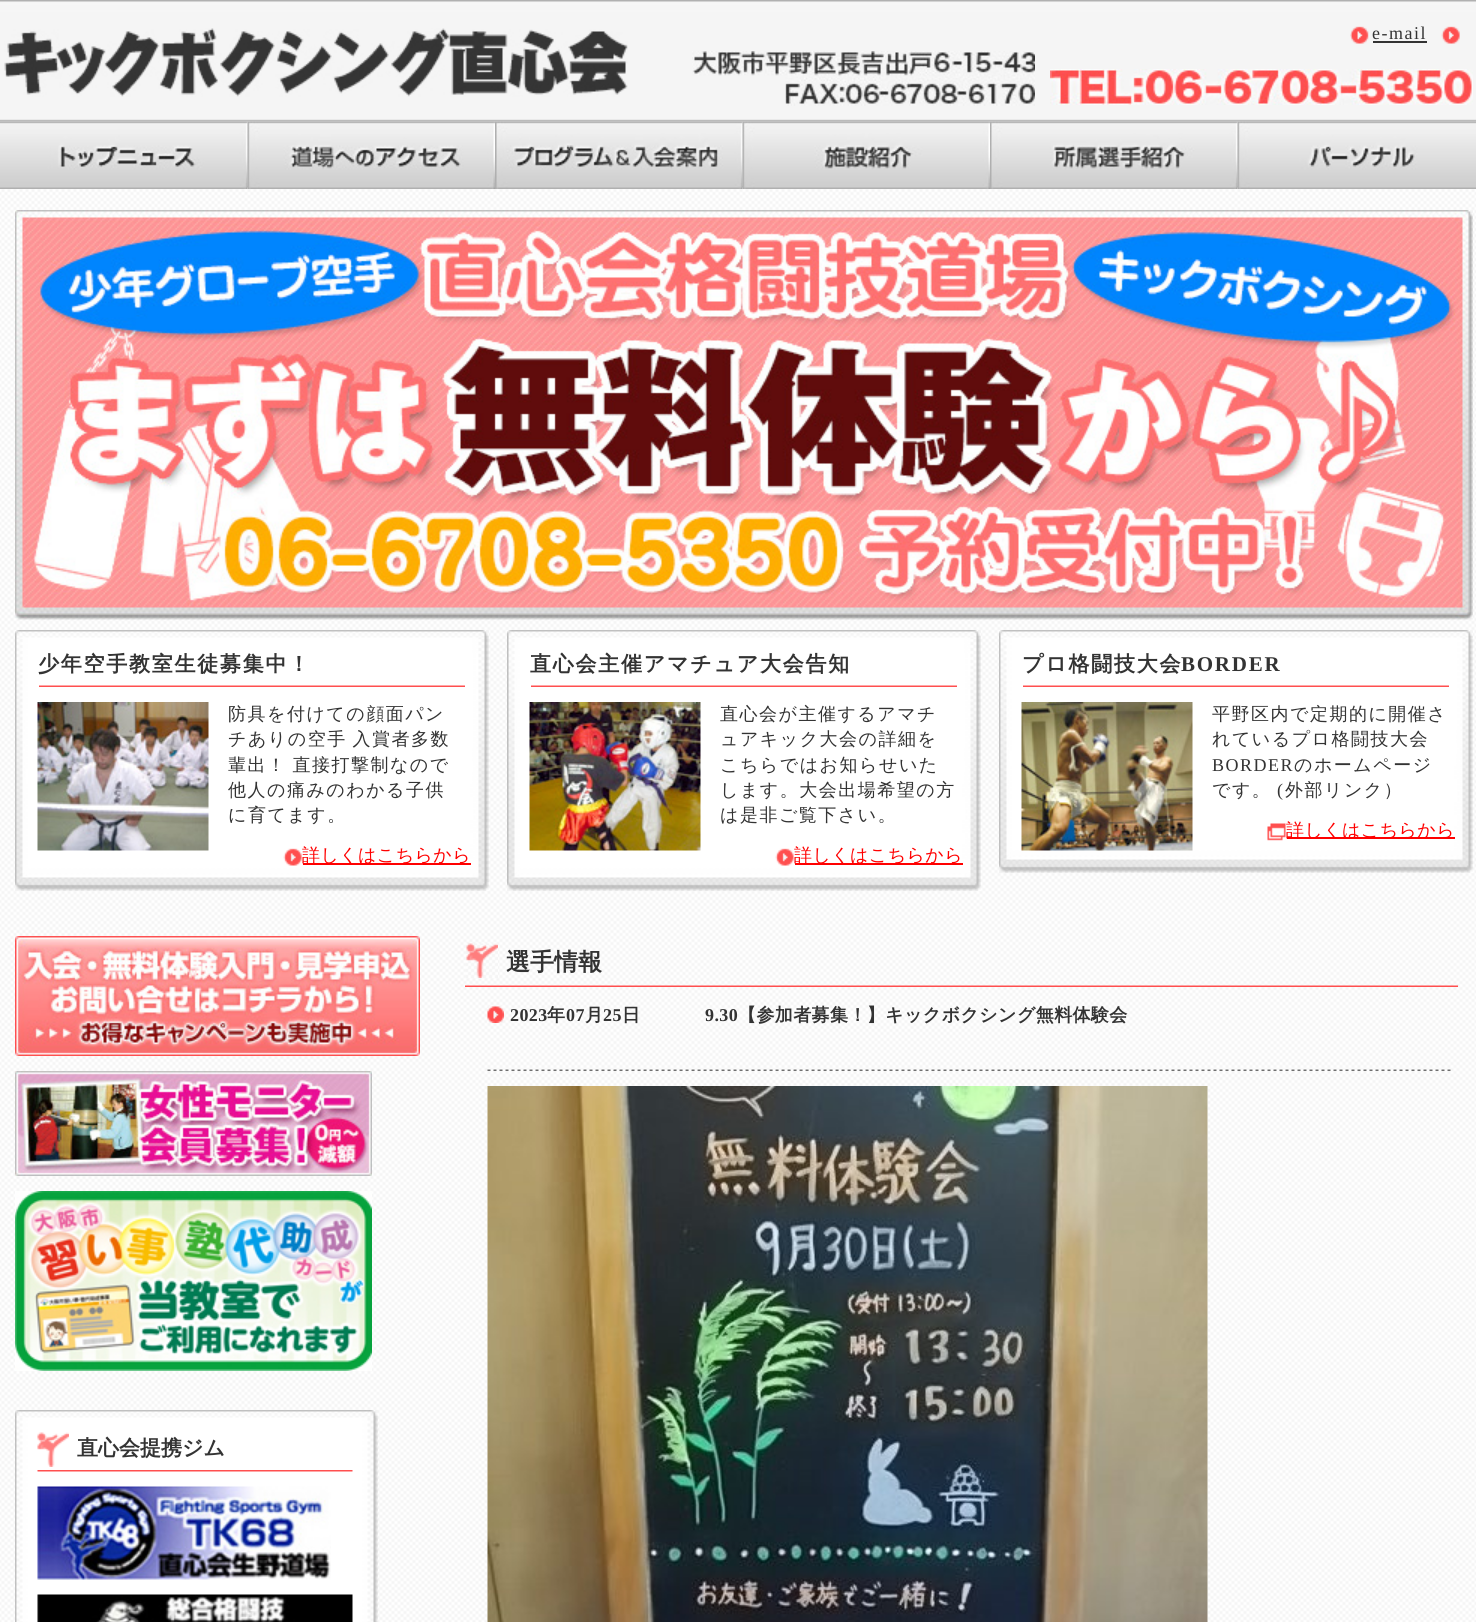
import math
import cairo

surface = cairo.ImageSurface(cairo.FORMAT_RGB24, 1476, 1622)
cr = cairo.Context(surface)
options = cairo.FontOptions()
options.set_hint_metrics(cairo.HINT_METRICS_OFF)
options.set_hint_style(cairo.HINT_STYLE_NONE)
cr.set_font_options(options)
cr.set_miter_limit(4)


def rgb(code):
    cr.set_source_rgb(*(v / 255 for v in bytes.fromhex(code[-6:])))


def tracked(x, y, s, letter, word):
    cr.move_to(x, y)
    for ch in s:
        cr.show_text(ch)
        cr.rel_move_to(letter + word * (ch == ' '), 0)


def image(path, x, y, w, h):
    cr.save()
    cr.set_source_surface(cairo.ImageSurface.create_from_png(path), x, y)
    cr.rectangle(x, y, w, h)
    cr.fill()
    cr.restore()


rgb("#ffffff")
cr.paint()
image("img/1.png", 0, 187, 1476, 1435)
image("img/2.png", 0, 0, 1476, 188)
image("img/3.png", 4, 28, 624, 69)
image("img/4.png", 1350, 26, 19, 18)
rgb("#333333")
cr.rectangle(1373, 41, 54, 2)
cr.fill()
image("img/5.png", 1441, 26, 19, 18)
image("img/6.png", 692, 51, 343, 55)
image("img/7.png", 1050, 69, 423, 36)
image("img/8.png", 0, 121, 248, 68)
image("img/9.png", 247, 121, 248, 68)
image("img/10.png", 495, 121, 248, 68)
image("img/11.png", 742, 121, 248, 68)
image("img/12.png", 990, 121, 248, 68)
image("img/13.png", 1237, 121, 239, 68)
image("img/14.png", 15, 210, 1458, 410)
image("img/15.png", 15, 637, 474, 254)
image("img/16.png", 15, 630, 474, 8)
image("img/17.png", 39, 685, 426, 2)
image("img/18.png", 37, 702, 172, 149)
image("img/19.png", 283, 848, 19, 18)
rgb("#ff0000")
cr.rectangle(303, 863, 168, 2)
cr.fill()
image("img/20.png", 507, 637, 474, 254)
image("img/21.png", 507, 630, 474, 8)
image("img/17.png", 531, 685, 426, 2)
image("img/22.png", 529, 702, 172, 149)
image("img/23.png", 775, 848, 19, 18)
cr.rectangle(795, 863, 168, 2)
cr.fill()
image("img/24.png", 999, 637, 474, 236)
image("img/25.png", 999, 630, 474, 8)
image("img/17.png", 1023, 685, 426, 2)
image("img/26.png", 1021, 702, 172, 149)
image("img/27.png", 1267, 823, 19, 18)
cr.rectangle(1287, 837, 168, 2)
cr.fill()
image("img/28.png", 465, 985, 993, 2)
image("img/29.png", 466, 943, 32, 35)
image("img/30.png", 487, 1069, 964, 2)
image("img/31.png", 487, 1006, 17, 17)
image("img/32.png", 487, 1086, 721, 536)
image("img/33.png", 15, 936, 405, 120)
image("img/34.png", 15, 1071, 357, 105)
image("img/35.png", 15, 1191, 357, 180)
image("img/36.png", 15, 1417, 363, 205)
image("img/37.png", 15, 1410, 363, 8)
image("img/38.png", 37, 1470, 316, 2)
image("img/39.png", 37, 1432, 32, 35)
image("img/40.png", 37, 1486, 294, 94)
image("img/41.png", 37, 1594, 316, 28)
cr.select_font_face("Liberation Serif")
cr.set_font_size(18)
rgb("#333333")
tracked(1372, 39, "e-mail", 1.5, 0)
cr.select_font_face("WenQuanYi Zen Hei", cairo.FONT_SLANT_NORMAL, cairo.FONT_WEIGHT_BOLD)
cr.set_font_size(21)
tracked(38, 671, "少年空手教室生徒募集中！", 1.75, 0)
cr.select_font_face("WenQuanYi Zen Hei Medium")
cr.set_font_size(18)
tracked(228, 720, "防具を付けての顔面パン", 1.5, 0)
tracked(228, 745, "チありの空手 入賞者多数", 1.5, -1)
tracked(228, 771, "輩出！ 直接打撃制なので", 1.5, -1)
tracked(228, 796, "他人の痛みのわかる子供", 1.5, 0)
tracked(228, 821, "に育てます。", 1.5, 0)
rgb("#ff0000")
tracked(302, 861, "詳しくはこちらから", 0.4, 0)
cr.select_font_face("WenQuanYi Zen Hei", cairo.FONT_SLANT_NORMAL, cairo.FONT_WEIGHT_BOLD)
cr.set_font_size(21)
rgb("#333333")
tracked(530, 671, "直心会主催アマチュア大会告知", 1.75, 0)
cr.select_font_face("WenQuanYi Zen Hei Medium")
cr.set_font_size(18)
for x, y, s in [
    (720, 720, "直心会が主催するアマチ"),
    (720, 745, "ュアキック大会の詳細を"),
    (720, 771, "こちらではお知らせいた"),
    (720, 796, "します。大会出場希望の方"),
    (720, 821, "は是非ご覧下さい。"),
]:
    tracked(x, y, s, 1.5, 0)
rgb("#ff0000")
tracked(794, 861, "詳しくはこちらから", 0.4, 0)
cr.select_font_face("WenQuanYi Zen Hei", cairo.FONT_SLANT_NORMAL, cairo.FONT_WEIGHT_BOLD)
cr.set_font_size(21)
rgb("#333333")
tracked(1022, 671, "プロ格闘技大会", 1.75, 0)
cr.select_font_face("Liberation Serif", cairo.FONT_SLANT_NORMAL, cairo.FONT_WEIGHT_BOLD)
tracked(1181, 671, "BORDER", 1.75, 0)
cr.select_font_face("WenQuanYi Zen Hei Medium")
cr.set_font_size(18)
tracked(1212, 720, "平野区内で定期的に開催さ", 1.5, 0)
tracked(1212, 745, "れているプロ格闘技大会", 1.5, 0)
cr.select_font_face("Liberation Serif")
tracked(1212, 771, "BORDER", 1.5, 0)
cr.select_font_face("WenQuanYi Zen Hei Medium")
tracked(1294, 771, "のホームページ", 1.5, 0)
tracked(1212, 796, "です。", 1.5, 0)
cr.select_font_face("Liberation Serif")
tracked(1277, 796, "(", 1.5, 0)
cr.select_font_face("WenQuanYi Zen Hei Medium")
tracked(1285, 796, "外部リンク）", 1.5, 0)
rgb("#ff0000")
tracked(1286, 836, "詳しくはこちらから", 0.4, 0)
cr.select_font_face("WenQuanYi Zen Hei", cairo.FONT_SLANT_NORMAL, cairo.FONT_WEIGHT_BOLD)
cr.set_font_size(24)
rgb("#333333")
cr.move_to(506, 970)
cr.show_text("選手情報")
cr.select_font_face("Liberation Serif", cairo.FONT_SLANT_NORMAL, cairo.FONT_WEIGHT_BOLD)
cr.set_font_size(18)
tracked(510, 1021, "2023", 0.4, 0)
cr.select_font_face("WenQuanYi Zen Hei", cairo.FONT_SLANT_NORMAL, cairo.FONT_WEIGHT_BOLD)
tracked(547, 1021, "年", 0.4, 0)
cr.select_font_face("Liberation Serif", cairo.FONT_SLANT_NORMAL, cairo.FONT_WEIGHT_BOLD)
tracked(566, 1021, "07", 0.4, 0)
cr.select_font_face("WenQuanYi Zen Hei", cairo.FONT_SLANT_NORMAL, cairo.FONT_WEIGHT_BOLD)
tracked(585, 1021, "月", 0.4, 0)
cr.select_font_face("Liberation Serif", cairo.FONT_SLANT_NORMAL, cairo.FONT_WEIGHT_BOLD)
tracked(603, 1021, "25", 0.4, 0)
cr.select_font_face("WenQuanYi Zen Hei", cairo.FONT_SLANT_NORMAL, cairo.FONT_WEIGHT_BOLD)
tracked(622, 1021, "日", 0.4, 0)
cr.select_font_face("Liberation Serif", cairo.FONT_SLANT_NORMAL, cairo.FONT_WEIGHT_BOLD)
tracked(705, 1021, "9.30", 0.4, 0)
cr.select_font_face("WenQuanYi Zen Hei", cairo.FONT_SLANT_NORMAL, cairo.FONT_WEIGHT_BOLD)
tracked(738, 1021, "【参加者募集！】キックボクシング無料体験会", 0.4, 0)
cr.set_font_size(21)
cr.move_to(77, 1455)
cr.show_text("直心会提携ジム")
surface.write_to_png("page.png")
